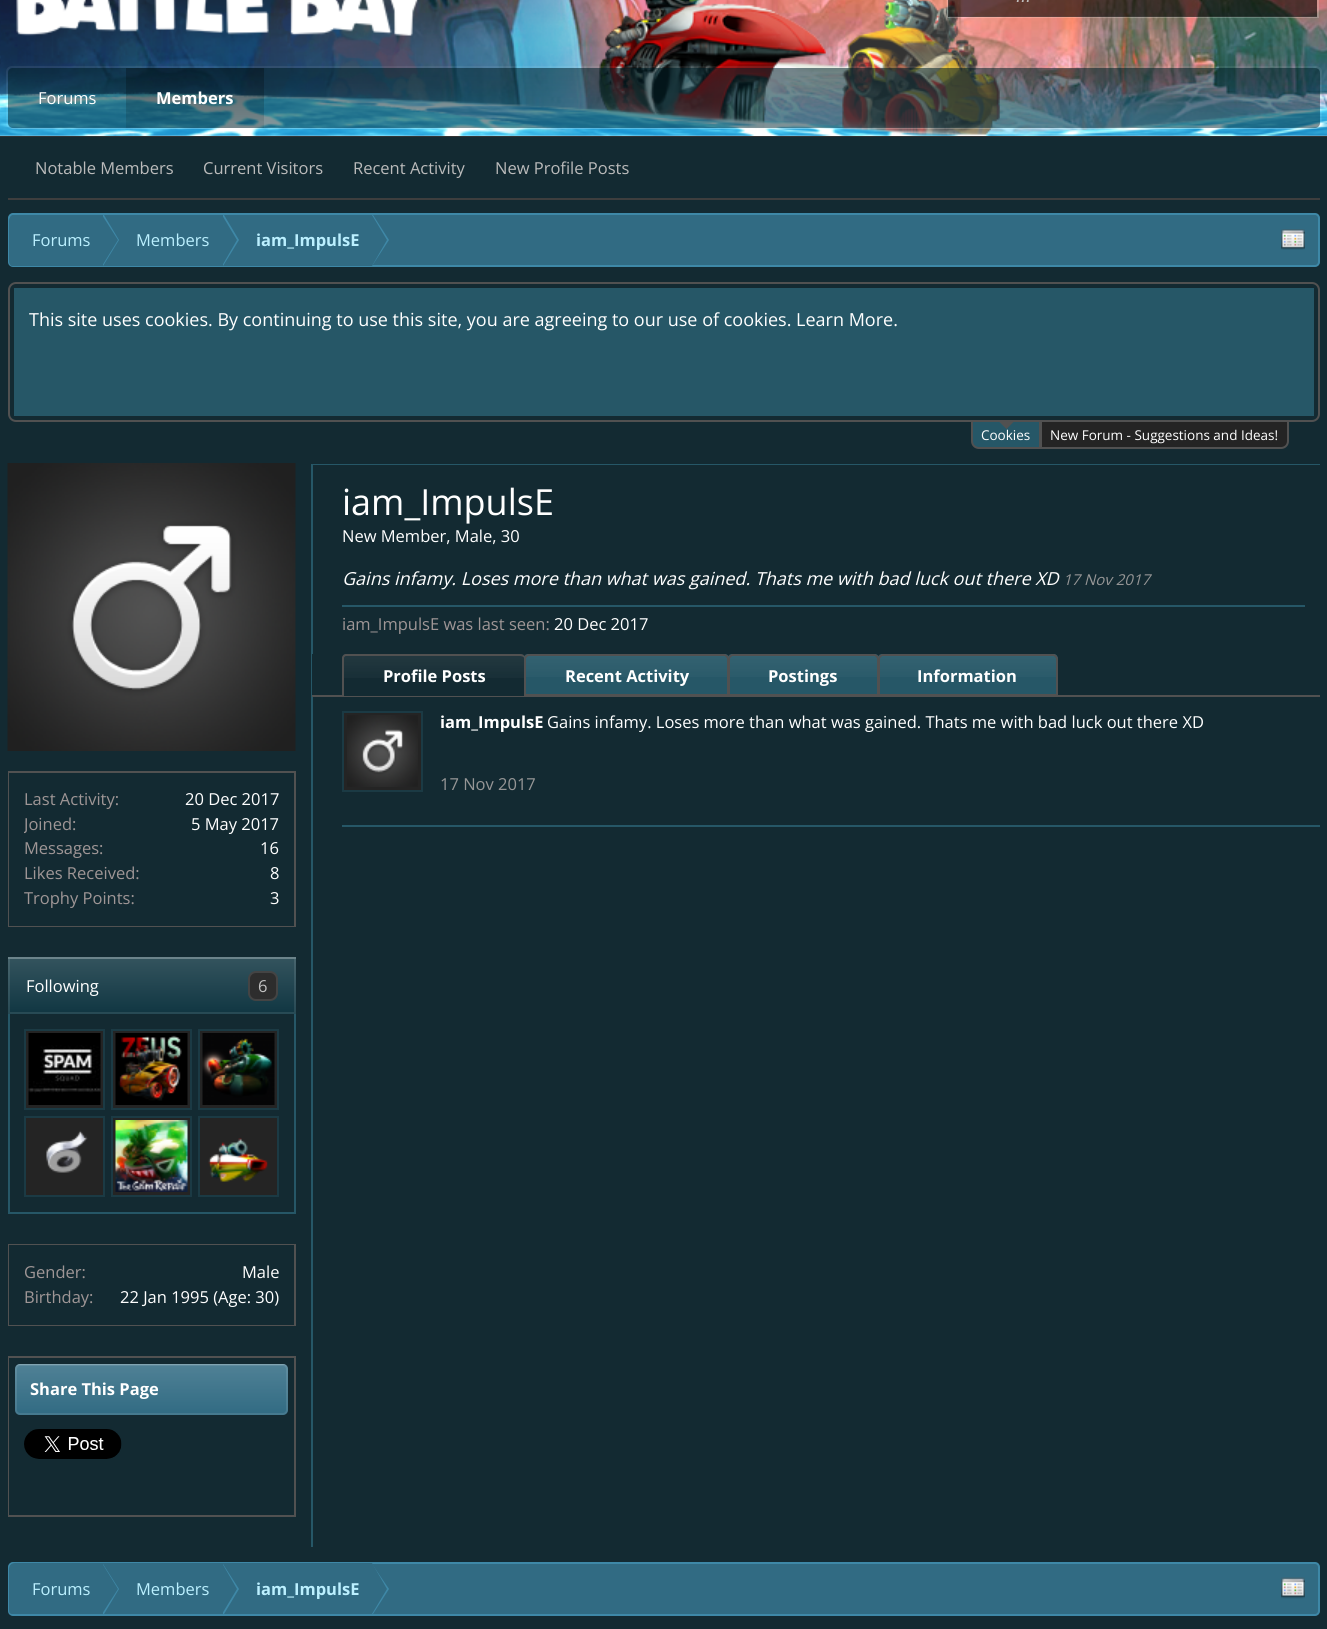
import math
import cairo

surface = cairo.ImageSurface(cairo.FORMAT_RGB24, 1327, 1629)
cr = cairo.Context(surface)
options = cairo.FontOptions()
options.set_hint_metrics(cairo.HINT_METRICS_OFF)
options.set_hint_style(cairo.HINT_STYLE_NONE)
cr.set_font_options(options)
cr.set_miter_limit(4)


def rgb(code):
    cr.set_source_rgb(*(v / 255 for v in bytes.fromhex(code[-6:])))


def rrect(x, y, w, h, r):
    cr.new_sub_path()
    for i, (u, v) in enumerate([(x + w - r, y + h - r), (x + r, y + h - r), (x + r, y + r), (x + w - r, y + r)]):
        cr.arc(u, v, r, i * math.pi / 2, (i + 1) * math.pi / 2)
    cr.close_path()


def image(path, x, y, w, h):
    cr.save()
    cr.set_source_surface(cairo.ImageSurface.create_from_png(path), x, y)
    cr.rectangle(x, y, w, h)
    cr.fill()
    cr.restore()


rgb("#132a32")
cr.paint()
rgb("#000000")
cr.rectangle(0, 136, 1327, 1)
cr.fill()
image("img/1.png", 0, 0, 1327, 136)
cr.set_source_rgba(1, 1, 1, 0.2)
cr.rectangle(0, 135, 1327, 2)
cr.fill()
image("img/2.png", 16, 0, 402, 36)
cr.rectangle(948, -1, 370, 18)
cr.stroke()
cr.set_source_rgba(0, 0, 0, 0.6)
cr.rectangle(948, 0, 369, 17)
cr.fill()
rrect(7, 67, 1314, 61, 5)
cr.set_source_rgba(1, 1, 1, 0.07)
cr.stroke()
cr.set_source_rgba(1, 1, 1, 0.15)
cr.new_path()
cr.move_to(8, 125)
cr.curve_to(9, 127, 11, 129, 13, 129)
cr.line_to(1315, 129)
cr.curve_to(1318, 129, 1320, 127, 1320, 124)
cr.line_to(1320, 123)
cr.curve_to(1320, 125, 1318, 128, 1316, 128)
cr.line_to(12, 128)
cr.curve_to(10, 128, 9, 127, 8, 125)
cr.close_path()
cr.fill()
cr.set_source_rgba(0.031, 0.173, 0.216, 0.5)
rrect(8, 68, 1312, 60, 5)
cr.fill()
gradient = cairo.LinearGradient(664, 67, 664, 128)
gradient.add_color_stop_rgba(0, 0, 0, 0, 0.1)
gradient.add_color_stop_rgba(1, 0, 0, 0, 0)
cr.set_source(gradient)
rrect(8, 68, 1312, 60, 5)
cr.fill()
cr.set_source_rgba(0, 0, 0, 0.1)
cr.rectangle(126, 68, 138, 60)
cr.fill()
gradient = cairo.LinearGradient(195, 67, 195, 128)
gradient.add_color_stop_rgba(0, 0, 0, 0, 0.2)
gradient.add_color_stop_rgba(1, 0, 0, 0, 0)
cr.set_source(gradient)
cr.rectangle(126, 68, 138, 53)
cr.fill()
rgb("#3e3e3e")
cr.rectangle(8, 198, 1312, 2)
cr.fill()
rgb("#316b83")
rrect(9, 214, 1310, 52, 4)
cr.fill_preserve()
rgb("#3e88a7")
cr.stroke()
cr.save()
rrect(9, 215, 1310, 51, 3)
cr.clip()
rgb("#316b83")
cr.new_path()
cr.move_to(15, 215)
cr.line_to(102, 215)
cr.line_to(102, 267)
cr.line_to(15, 267)
cr.curve_to(11.5, 267, 9, 264.5, 9, 261)
cr.line_to(9, 221)
cr.curve_to(9, 217.5, 11.5, 215, 15, 215)
cr.close_path()
cr.fill()
cr.restore()
rgb("#316b83")
cr.rectangle(102, 265, 119, 1)
cr.fill()
rgb("#3e88a7")
cr.new_path()
cr.move_to(103, 266)
cr.line_to(119, 240)
cr.line_to(104, 215)
cr.line_to(103, 215)
cr.close_path()
cr.fill()
rgb("#316b83")
cr.new_path()
cr.move_to(102, 215)
cr.line_to(118, 240)
cr.line_to(102, 266)
cr.line_to(101, 266)
cr.line_to(101, 215)
cr.close_path()
cr.fill()
cr.rectangle(222, 265, 149, 1)
cr.fill()
rgb("#3e88a7")
cr.new_path()
cr.move_to(223, 266)
cr.line_to(239, 240)
cr.line_to(224, 215)
cr.line_to(223, 215)
cr.close_path()
cr.fill()
rgb("#316b83")
cr.new_path()
cr.move_to(222, 215)
cr.line_to(237, 240)
cr.line_to(222, 266)
cr.line_to(221, 266)
cr.line_to(221, 215)
cr.close_path()
cr.fill()
rgb("#3e88a7")
cr.new_path()
cr.move_to(372, 266)
cr.line_to(389, 240)
cr.line_to(373, 215)
cr.line_to(372, 215)
cr.close_path()
cr.fill()
rgb("#316b83")
cr.new_path()
cr.move_to(372, 215)
cr.line_to(387, 240)
cr.line_to(372, 266)
cr.line_to(371, 266)
cr.line_to(371, 215)
cr.close_path()
cr.fill()
image("img/3.png", 1281, 229, 24, 21)
rrect(9, 283, 1310, 138, 7)
rgb("#515151")
cr.stroke()
rgb("#265767")
cr.rectangle(14, 288, 1300, 128)
cr.fill()
cr.new_path()
cr.move_to(972, 421)
cr.line_to(1040, 421)
cr.line_to(1040, 448)
cr.line_to(979, 448)
cr.curve_to(975, 448, 972, 445, 972, 441)
cr.close_path()
cr.fill_preserve()
rgb("#515151")
cr.stroke()
cr.new_path()
cr.move_to(999, 421.5)
cr.line_to(1014, 421.5)
cr.line_to(1006.5, 429)
cr.close_path()
cr.fill()
rgb("#242424")
cr.new_path()
cr.move_to(1041, 421)
cr.line_to(1288, 421)
cr.line_to(1288, 441)
cr.curve_to(1288, 445, 1285, 448, 1281, 448)
cr.line_to(1041, 448)
cr.close_path()
cr.fill_preserve()
rgb("#515151")
cr.stroke()
for x, y, w, h, color in [
    (312, 464, 1008, 1, "#265767"),
    (342, 605, 963, 2, "#265767"),
    (311, 464, 2, 1083, "#265767"),
    (312, 654, 1, 41, "#132a32"),
    (312, 695, 1008, 2, "#515151"),
]:
    rgb(color)
    cr.rectangle(x, y, w, h)
    cr.fill()
rgb("#132a32")
cr.new_path()
cr.move_to(347, 654)
cr.line_to(520, 654)
cr.curve_to(523, 654, 525, 656, 525, 659)
cr.line_to(525, 696)
cr.line_to(342, 696)
cr.line_to(342, 659)
cr.curve_to(342, 656, 344, 654, 347, 654)
cr.close_path()
cr.fill()
image("img/4.png", 342, 654, 183, 24)
rgb("#515151")
cr.set_fill_rule(cairo.FILL_RULE_EVEN_ODD)
cr.new_path()
cr.move_to(346, 654)
cr.line_to(520, 654)
cr.curve_to(523, 654, 525, 656, 525, 658)
cr.line_to(525, 696)
cr.line_to(342, 696)
cr.line_to(342, 658)
cr.curve_to(342, 656, 344, 654, 346, 654)
cr.close_path()
cr.move_to(346, 656)
cr.line_to(520, 656)
cr.curve_to(522, 656, 524, 657, 524, 658)
cr.line_to(524, 696)
cr.line_to(344, 696)
cr.line_to(344, 658)
cr.curve_to(344, 657, 345, 656, 346, 656)
cr.close_path()
cr.fill()
rgb("#265767")
cr.new_path()
cr.move_to(529, 654)
cr.line_to(724, 654)
cr.curve_to(727, 654, 729, 656, 729, 659)
cr.line_to(729, 696)
cr.line_to(524, 696)
cr.line_to(524, 659)
cr.curve_to(524, 656, 526, 654, 529, 654)
cr.close_path()
cr.fill()
image("img/5.png", 524, 654, 205, 23)
cr.new_path()
cr.move_to(529, 655)
cr.line_to(724, 655)
cr.curve_to(726, 655, 728, 657, 728, 659)
cr.line_to(728, 695)
cr.line_to(525, 695)
cr.line_to(525, 659)
cr.curve_to(525, 657, 527, 655, 529, 655)
cr.close_path()
rgb("#515151")
cr.stroke()
rgb("#265767")
cr.new_path()
cr.move_to(733, 654)
cr.line_to(874, 654)
cr.curve_to(877, 654, 879, 656, 879, 659)
cr.line_to(879, 696)
cr.line_to(728, 696)
cr.line_to(728, 659)
cr.curve_to(728, 656, 730, 654, 733, 654)
cr.close_path()
cr.fill()
image("img/6.png", 728, 654, 151, 23)
cr.new_path()
cr.move_to(733, 655)
cr.line_to(874, 655)
cr.curve_to(876, 655, 878, 657, 878, 659)
cr.line_to(878, 695)
cr.line_to(729, 695)
cr.line_to(729, 659)
cr.curve_to(729, 657, 731, 655, 733, 655)
cr.close_path()
rgb("#515151")
cr.stroke()
rgb("#265767")
cr.new_path()
cr.move_to(883, 654)
cr.line_to(1053, 654)
cr.curve_to(1056, 654, 1058, 656, 1058, 659)
cr.line_to(1058, 696)
cr.line_to(878, 696)
cr.line_to(878, 659)
cr.curve_to(878, 656, 880, 654, 883, 654)
cr.close_path()
cr.fill()
image("img/7.png", 878, 654, 179, 23)
cr.new_path()
cr.move_to(883, 655)
cr.line_to(1053, 655)
cr.curve_to(1055, 655, 1057, 657, 1057, 659)
cr.line_to(1057, 695)
cr.line_to(879, 695)
cr.line_to(879, 659)
cr.curve_to(879, 657, 881, 655, 883, 655)
cr.close_path()
rgb("#515151")
cr.stroke()
rgb("#265767")
cr.rectangle(342, 825, 978, 2)
cr.fill()
rgb("#242424")
cr.rectangle(343, 712, 79, 79)
cr.fill_preserve()
rgb("#1b3a44")
cr.stroke()
image("img/8.png", 347, 715, 71, 72)
image("img/9.png", 7, 463, 289, 288)
cr.rectangle(9, 772, 286, 154)
rgb("#515151")
cr.stroke()
rgb("#132a32")
cr.rectangle(9, 773, 285, 153)
cr.fill()
gradient = cairo.LinearGradient(152, 957, 152, 1014)
gradient.add_color_stop_rgba(0, 0.204, 0.329, 0.369, 1)
gradient.add_color_stop_rgba(1, 0.063, 0.212, 0.259, 1)
cr.set_source(gradient)
cr.rectangle(8, 959, 288, 55)
cr.fill()
cr.rectangle(9, 958, 286, 55)
cr.set_source_rgba(1, 1, 1, 0.1)
cr.stroke()
rgb("#6c848b")
cr.rectangle(8, 957, 288, 2)
cr.fill()
rgb("#2d2d2d")
rrect(249, 972, 28, 28, 7)
cr.fill_preserve()
rgb("#444444")
cr.stroke()
for x, y, w, h, color in [
    (294, 1014, 2, 200, "#265767"),
    (8, 1212, 288, 2, "#265767"),
    (8, 1014, 2, 200, "#265767"),
    (26, 1031, 77, 77, "#242424"),
]:
    rgb(color)
    cr.rectangle(x, y, w, h)
    cr.fill()
image("img/10.png", 28, 1033, 73, 72)
cr.rectangle(25, 1030, 79, 79)
rgb("#1b3a44")
cr.stroke()
rgb("#242424")
cr.rectangle(113, 1031, 77, 77)
cr.fill()
image("img/11.png", 115, 1033, 73, 72)
cr.rectangle(112, 1030, 79, 79)
rgb("#1b3a44")
cr.stroke()
rgb("#242424")
cr.rectangle(200, 1031, 77, 77)
cr.fill()
image("img/12.png", 202, 1033, 73, 72)
cr.rectangle(199, 1030, 79, 79)
rgb("#1b3a44")
cr.stroke()
rgb("#242424")
cr.rectangle(26, 1118, 77, 77)
cr.fill()
image("img/13.png", 46, 1130, 42, 43)
cr.rectangle(25, 1117, 79, 79)
rgb("#1b3a44")
cr.stroke()
rgb("#242424")
cr.rectangle(113, 1118, 77, 77)
cr.fill()
image("img/14.png", 115, 1120, 73, 72)
cr.rectangle(112, 1117, 79, 79)
rgb("#1b3a44")
cr.stroke()
rgb("#242424")
cr.rectangle(200, 1118, 77, 77)
cr.fill()
image("img/15.png", 208, 1138, 60, 44)
cr.rectangle(199, 1117, 79, 79)
rgb("#1b3a44")
cr.stroke()
cr.rectangle(9, 1245, 286, 80)
rgb("#515151")
cr.stroke()
rgb("#132a32")
cr.rectangle(9, 1245, 285, 80)
cr.fill()
cr.rectangle(9, 1357, 286, 159)
rgb("#515151")
cr.stroke()
rgb("#132a32")
cr.rectangle(9, 1358, 1, 157)
cr.fill()
rgb("#316b83")
rrect(15, 1364, 273, 51, 5)
cr.fill()
gradient = cairo.LinearGradient(152, 1364, 152, 1415)
gradient.add_color_stop_rgba(0, 1, 1, 1, 0.15)
gradient.add_color_stop_rgba(1, 1, 1, 1, 0)
cr.set_source(gradient)
rrect(15, 1364, 273, 51, 5)
cr.fill()
rrect(16, 1365, 271, 49, 4)
cr.set_source_rgba(1, 1, 1, 0.1)
cr.stroke()
cr.set_source_rgba(1, 1, 1, 0.2)
cr.set_fill_rule(cairo.FILL_RULE_WINDING)
cr.new_path()
cr.move_to(20, 1365)
cr.line_to(284, 1365)
cr.curve_to(286, 1365, 288, 1367, 288, 1370)
cr.curve_to(288, 1367, 286, 1364, 283, 1364)
cr.line_to(20, 1364)
cr.curve_to(17, 1364, 15, 1367, 15, 1370)
cr.curve_to(15, 1367, 17, 1365, 20, 1365)
cr.close_path()
cr.fill()
image("img/16.png", 24, 1429, 98, 30)
rgb("#316b83")
rrect(9, 1563, 1310, 52, 4)
cr.fill_preserve()
rgb("#3e88a7")
cr.stroke()
cr.save()
rrect(9, 1563, 1310, 51, 3)
cr.clip()
rgb("#316b83")
cr.new_path()
cr.move_to(15, 1563)
cr.line_to(102, 1563)
cr.line_to(102, 1616)
cr.line_to(15, 1616)
cr.curve_to(11.5, 1616, 9, 1613.5, 9, 1610)
cr.line_to(9, 1569)
cr.curve_to(9, 1565.5, 11.5, 1563, 15, 1563)
cr.close_path()
cr.fill()
cr.restore()
cr.new_path()
cr.move_to(104, 1614)
cr.line_to(103, 1614)
cr.line_to(103, 1564)
cr.line_to(119, 1589)
cr.close_path()
cr.fill()
rgb("#316b83")
cr.rectangle(102, 1563, 119, 1)
cr.fill()
cr.new_path()
cr.move_to(102, 1563)
cr.line_to(118, 1589)
cr.line_to(102, 1614)
cr.line_to(101, 1614)
cr.line_to(101, 1563)
cr.close_path()
cr.fill()
rgb("#3e88a7")
cr.new_path()
cr.move_to(224, 1614)
cr.line_to(223, 1614)
cr.line_to(223, 1564)
cr.line_to(239, 1589)
cr.close_path()
cr.fill()
rgb("#316b83")
cr.rectangle(222, 1563, 149, 1)
cr.fill()
cr.new_path()
cr.move_to(222, 1563)
cr.line_to(237, 1589)
cr.line_to(222, 1614)
cr.line_to(221, 1614)
cr.line_to(221, 1563)
cr.close_path()
cr.fill()
rgb("#3e88a7")
cr.new_path()
cr.move_to(373, 1614)
cr.line_to(372, 1614)
cr.line_to(372, 1564)
cr.line_to(389, 1589)
cr.close_path()
cr.fill()
rgb("#316b83")
cr.new_path()
cr.move_to(372, 1563)
cr.line_to(387, 1589)
cr.line_to(372, 1614)
cr.line_to(371, 1614)
cr.line_to(371, 1563)
cr.close_path()
cr.fill()
image("img/17.png", 1281, 1577, 24, 22)
cr.select_font_face("Liberation Sans", cairo.FONT_SLANT_ITALIC)
cr.set_font_size(18)
rgb("#c2c2c2")
cr.move_to(1016, 2)
cr.show_text("...")
cr.select_font_face("Open Sans", cairo.FONT_SLANT_NORMAL, cairo.FONT_WEIGHT_BOLD)
cr.set_font_size(16.5)
rgb("#ffffff")
cr.move_to(156, 104)
cr.show_text("Members")
cr.select_font_face("Open Sans")
rgb("#bbbbbb")
for x, y, s in [
    (35, 174, "Notable Members"),
    (203, 174, "Current Visitors"),
    (353, 174, "Recent Activity"),
    (495, 174, "New Profile Posts"),
]:
    cr.move_to(x, y)
    cr.show_text(s)
rgb("#ffffff")
cr.move_to(38, 104)
cr.show_text("Forums")
rgb("#bbf0ff")
cr.move_to(32, 246)
cr.show_text("Forums")
cr.move_to(136, 246)
cr.show_text("Members")
cr.select_font_face("Open Sans", cairo.FONT_SLANT_NORMAL, cairo.FONT_WEIGHT_BOLD)
cr.move_to(256, 246)
cr.show_text("iam_ImpulsE")
cr.select_font_face("Open Sans")
cr.set_font_size(18)
rgb("#ffffff")
cr.move_to(29, 326)
cr.show_text("This site uses cookies. By continuing to use this site, you are agreeing to our use of cookies. Learn More.")
cr.set_font_size(13.5)
cr.move_to(981, 440)
cr.show_text("Cookies")
cr.move_to(1050, 440)
cr.show_text("New Forum - Suggestions and Ideas!")
cr.set_font_size(36)
cr.move_to(342, 515)
cr.show_text("iam_ImpulsE")
cr.set_font_size(16.5)
cr.move_to(342, 542)
cr.show_text("New Member, Male, 30")
cr.select_font_face("Open Sans", cairo.FONT_SLANT_ITALIC)
cr.set_font_size(18)
cr.move_to(342, 585)
cr.show_text("Gains infamy. Loses more than what was gained. Thats me with bad luck out there XD")
cr.set_font_size(15)
rgb("#969696")
cr.move_to(1063, 585)
cr.show_text("17 Nov 2017")
cr.select_font_face("Open Sans")
cr.set_font_size(16.5)
rgb("#9f9696")
cr.move_to(342, 630)
cr.show_text("iam_ImpulsE was last seen:")
rgb("#ffffff")
cr.move_to(554, 630)
cr.show_text("20 Dec 2017")
cr.select_font_face("Open Sans", cairo.FONT_SLANT_NORMAL, cairo.FONT_WEIGHT_BOLD)
for x, y, s in [
    (383, 682, "Profile Posts"),
    (565, 682, "Recent Activity"),
    (768, 682, "Postings"),
    (917, 682, "Information"),
    (440, 728, "iam_ImpulsE"),
]:
    cr.move_to(x, y)
    cr.show_text(s)
cr.select_font_face("Open Sans")
cr.move_to(547, 728)
cr.show_text("Gains infamy. Loses more than what was gained. Thats me with bad luck out there XD")
rgb("#969696")
cr.move_to(440, 790)
cr.show_text("17 Nov 2017")
rgb("#9f9696")
cr.move_to(24, 805)
cr.show_text("Last Activity:")
rgb("#ffffff")
cr.move_to(185, 805)
cr.show_text("20 Dec 2017")
cr.save()
cr.rectangle(24, 812, 255, 25)
cr.clip()
rgb("#9f9696")
cr.move_to(24, 830)
cr.show_text("Joined:")
cr.restore()
cr.move_to(191, 830)
cr.show_text("5 May 2017")
rgb("#9f9696")
cr.move_to(24, 854)
cr.show_text("Messages:")
rgb("#ffffff")
cr.move_to(260, 854)
cr.show_text("16")
rgb("#9f9696")
cr.move_to(24, 879)
cr.show_text("Likes Received:")
rgb("#ffffff")
cr.move_to(270, 879)
cr.show_text("8")
rgb("#9f9696")
cr.move_to(24, 904)
cr.show_text("Trophy Points:")
rgb("#ffffff")
cr.move_to(270, 904)
cr.show_text("3")
cr.move_to(26, 992)
cr.show_text("Following")
rgb("#c2c2c2")
cr.move_to(258, 992)
cr.show_text("6")
rgb("#9f9696")
cr.move_to(24, 1278)
cr.show_text("Gender:")
rgb("#ffffff")
cr.move_to(242, 1278)
cr.show_text("Male")
rgb("#9f9696")
cr.move_to(24, 1303)
cr.show_text("Birthday:")
rgb("#ffffff")
cr.move_to(120, 1303)
cr.show_text("22 Jan 1995 (Age: 30)")
cr.select_font_face("Open Sans", cairo.FONT_SLANT_NORMAL, cairo.FONT_WEIGHT_BOLD)
cr.move_to(30, 1395)
cr.show_text("Share This Page")
cr.select_font_face("Open Sans")
rgb("#bbf0ff")
cr.move_to(32, 1595)
cr.show_text("Forums")
cr.move_to(136, 1595)
cr.show_text("Members")
cr.select_font_face("Open Sans", cairo.FONT_SLANT_NORMAL, cairo.FONT_WEIGHT_BOLD)
cr.move_to(256, 1595)
cr.show_text("iam_ImpulsE")
surface.write_to_png("page.png")
